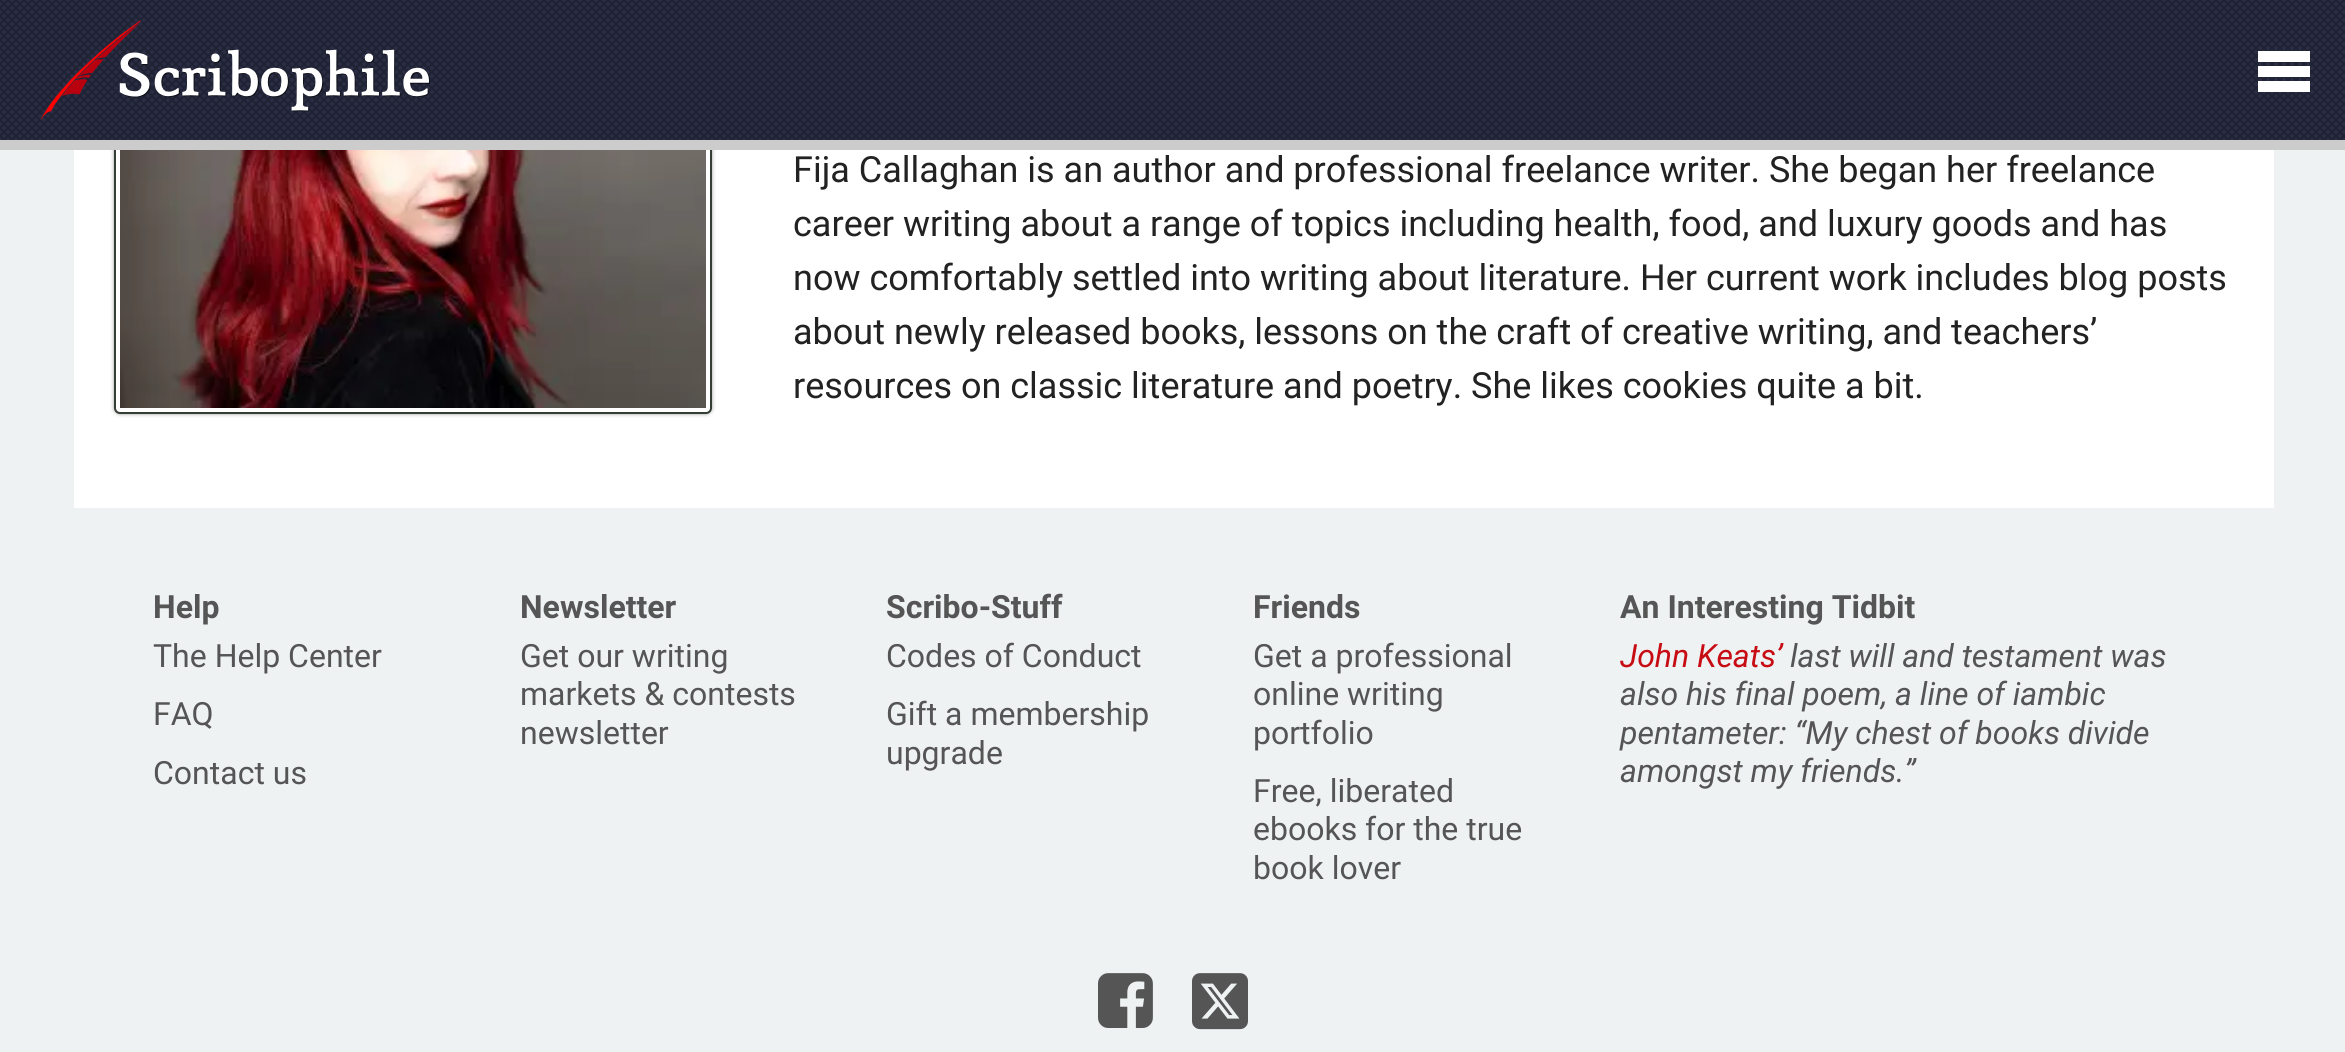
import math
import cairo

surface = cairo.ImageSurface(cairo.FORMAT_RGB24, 2345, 1052)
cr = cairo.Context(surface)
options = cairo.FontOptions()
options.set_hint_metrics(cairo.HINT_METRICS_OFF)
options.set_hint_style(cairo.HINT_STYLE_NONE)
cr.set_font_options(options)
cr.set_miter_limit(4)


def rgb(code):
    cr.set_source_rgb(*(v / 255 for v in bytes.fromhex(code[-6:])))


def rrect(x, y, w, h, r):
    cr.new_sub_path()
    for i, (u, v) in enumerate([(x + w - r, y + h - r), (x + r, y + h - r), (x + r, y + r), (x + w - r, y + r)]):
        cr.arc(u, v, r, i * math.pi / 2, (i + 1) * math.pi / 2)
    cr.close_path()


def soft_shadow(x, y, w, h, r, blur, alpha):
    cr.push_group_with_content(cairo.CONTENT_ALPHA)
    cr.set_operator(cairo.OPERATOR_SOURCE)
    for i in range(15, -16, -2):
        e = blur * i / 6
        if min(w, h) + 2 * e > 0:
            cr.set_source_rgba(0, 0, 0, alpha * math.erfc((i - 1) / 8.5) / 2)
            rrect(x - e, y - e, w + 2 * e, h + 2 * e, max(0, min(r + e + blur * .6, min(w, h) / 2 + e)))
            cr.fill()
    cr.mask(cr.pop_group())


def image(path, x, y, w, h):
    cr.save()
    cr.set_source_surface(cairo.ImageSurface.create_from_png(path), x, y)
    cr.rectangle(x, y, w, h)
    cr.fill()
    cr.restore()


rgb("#eff2f3")
cr.paint()
rgb("#ffffff")
cr.rectangle(74, 150, 2200, 358)
cr.fill()
rgb("#000000")
soft_shadow(114, -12, 598, 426, 6, 2, 0.4)
rgb("#ffffff")
rrect(115, -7, 596, 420, 5)
cr.fill_preserve()
rgb("#353e34")
cr.stroke()
image("img/1.png", 0, 0, 2345, 140)
rgb("#cccccc")
cr.rectangle(0, 140, 2345, 10)
cr.fill()
image("img/2.png", 40, 20, 390, 100)
rgb("#ffffff")
cr.new_path()
cr.move_to(2258, 51)
cr.line_to(2310, 51)
cr.line_to(2310, 62)
cr.line_to(2258, 62)
cr.close_path()
cr.move_to(2258, 66)
cr.line_to(2310, 66)
cr.line_to(2310, 77)
cr.line_to(2258, 77)
cr.close_path()
cr.move_to(2258, 81)
cr.line_to(2310, 81)
cr.line_to(2310, 92)
cr.line_to(2258, 92)
cr.close_path()
cr.fill()
image("img/3.png", 120, 150, 586, 258)
image("img/4.png", 1098, 973, 55, 55)
image("img/5.png", 1192, 973, 56, 57)
cr.select_font_face("Roboto")
cr.set_font_size(36)
rgb("#222222")
for x, y, s in [
    (793, 182, "Fija Callaghan is an author and professional freelance writer. She began her freelance"),
    (793, 236, "career writing about a range of topics including health, food, and luxury goods and has"),
    (793, 290, "now comfortably settled into writing about literature. Her current work includes blog posts"),
    (793, 344, "about newly released books, lessons on the craft of creative writing, and teachers’"),
    (793, 398, "resources on classic literature and poetry. She likes cookies quite a bit."),
]:
    cr.move_to(x, y)
    cr.show_text(s)
cr.select_font_face("Roboto", cairo.FONT_SLANT_NORMAL, cairo.FONT_WEIGHT_BOLD)
cr.set_font_size(32)
rgb("#555555")
cr.move_to(153, 618)
cr.show_text("Help")
cr.select_font_face("Roboto")
for x, y, s in [
    (153, 667, "The Help Center"),
    (153, 725, "FAQ"),
    (153, 784, "Contact us"),
]:
    cr.move_to(x, y)
    cr.show_text(s)
cr.select_font_face("Roboto", cairo.FONT_SLANT_NORMAL, cairo.FONT_WEIGHT_BOLD)
cr.move_to(520, 618)
cr.show_text("Newsletter")
cr.select_font_face("Roboto")
for x, y, s in [
    (520, 667, "Get our writing"),
    (520, 705, "markets & contests"),
    (520, 744, "newsletter"),
]:
    cr.move_to(x, y)
    cr.show_text(s)
cr.select_font_face("Roboto", cairo.FONT_SLANT_NORMAL, cairo.FONT_WEIGHT_BOLD)
cr.move_to(886, 618)
cr.show_text("Scribo-Stuff")
cr.select_font_face("Roboto")
for x, y, s in [
    (886, 667, "Codes of Conduct"),
    (886, 725, "Gift a membership"),
    (886, 764, "upgrade"),
]:
    cr.move_to(x, y)
    cr.show_text(s)
cr.select_font_face("Roboto", cairo.FONT_SLANT_NORMAL, cairo.FONT_WEIGHT_BOLD)
cr.move_to(1253, 618)
cr.show_text("Friends")
cr.select_font_face("Roboto")
for x, y, s in [
    (1253, 667, "Get a professional"),
    (1253, 705, "online writing"),
    (1253, 744, "portfolio"),
    (1253, 802, "Free, liberated"),
    (1253, 840, "ebooks for the true"),
    (1253, 879, "book lover"),
]:
    cr.move_to(x, y)
    cr.show_text(s)
cr.select_font_face("Roboto", cairo.FONT_SLANT_NORMAL, cairo.FONT_WEIGHT_BOLD)
cr.move_to(1620, 618)
cr.show_text("An Interesting Tidbit")
cr.select_font_face("Roboto", cairo.FONT_SLANT_ITALIC)
rgb("#c70c14")
cr.move_to(1620, 667)
cr.show_text("John Keats’")
rgb("#555555")
for x, y, s in [
    (1790, 667, "last will and testament was"),
    (1620, 705, "also his final poem, a line of iambic"),
    (1620, 744, "pentameter: “My chest of books divide"),
    (1620, 782, "amongst my friends.”"),
]:
    cr.move_to(x, y)
    cr.show_text(s)
surface.write_to_png("page.png")
